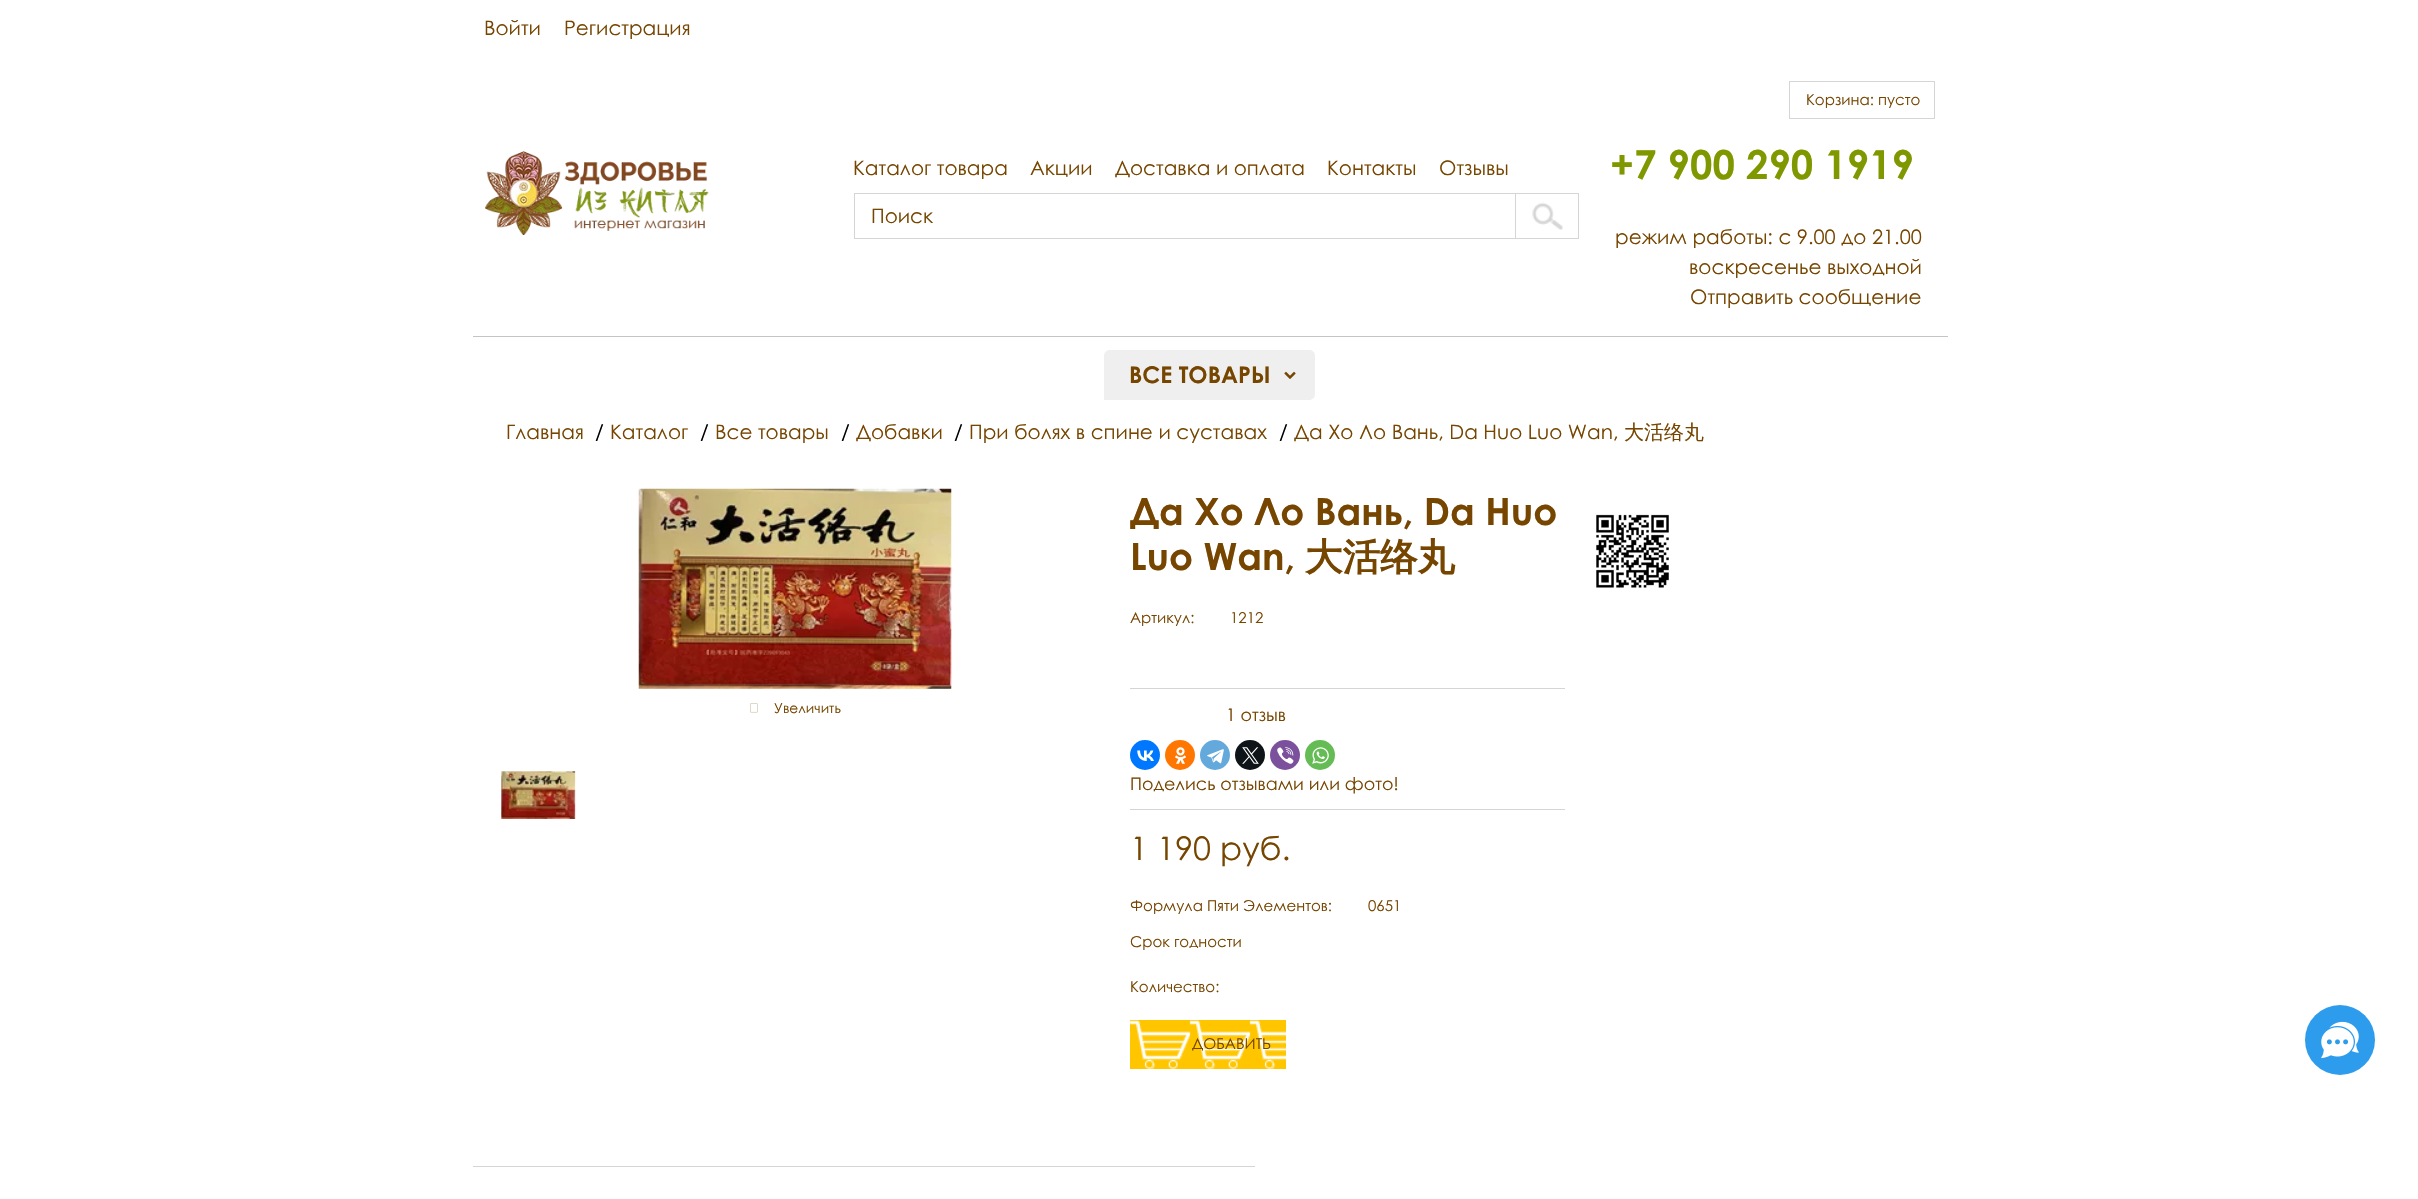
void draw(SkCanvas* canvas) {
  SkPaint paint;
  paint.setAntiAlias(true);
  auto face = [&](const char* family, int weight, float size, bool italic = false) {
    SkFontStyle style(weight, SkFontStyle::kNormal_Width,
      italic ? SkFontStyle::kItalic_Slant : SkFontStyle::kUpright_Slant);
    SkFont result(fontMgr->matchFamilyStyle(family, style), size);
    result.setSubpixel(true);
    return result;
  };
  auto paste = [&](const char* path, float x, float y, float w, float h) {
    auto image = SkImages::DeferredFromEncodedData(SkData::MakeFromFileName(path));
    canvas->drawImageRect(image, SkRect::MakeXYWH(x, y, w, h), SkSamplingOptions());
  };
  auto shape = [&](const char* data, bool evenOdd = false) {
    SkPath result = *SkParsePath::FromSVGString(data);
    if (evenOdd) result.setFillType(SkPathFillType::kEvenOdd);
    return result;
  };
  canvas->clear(0xffffffff);
  paint.setColor(0xffc4c4c4);
  canvas->drawRect(SkRect::MakeXYWH(473, 336, 1475, 1), paint);
  paste("img/1.png", 485, 151, 224, 84);
  paint.setStroke(true);
  paint.setStrokeWidth(1);
  paint.setColor(0xffd5d5d5);
  canvas->drawRect(SkRect::MakeXYWH(854.5f, 193.5f, 661, 45), paint);
  paste("img/2.png", 1532, 202, 31, 28);
  paint.setStroke(false);
  {
    const struct { float x, y, w, h; SkColor color; } items[] = {
      {1516, 193, 63, 1, 0xffd5d5d5},
      {1578, 193, 1, 46, 0xffd5d5d5},
      {1516, 238, 63, 1, 0xffd5d5d5},
    };
    for (auto [x, y, w, h, color] : items) {
      paint.setColor(color);
      canvas->drawRect(SkRect::MakeXYWH(x, y, w, h), paint);
    }
  }
  paint.setStroke(true);
  canvas->drawRect(SkRect::MakeXYWH(1789.5f, 81.5f, 145, 37), paint);
  paint.setStroke(false);
  paint.setColor(0xffefefef);
  canvas->drawPath(shape("M1110 350H1309C1312.5 350 1315 352.5 1315 356V394C1315 397.5 1312.5 400 1309 400H1104V356C1104 352.5 1106.5 350 1110 350Z"), paint);
  paste("img/3.png", 1284, 371, 12, 8);
  paste("img/4.png", 638, 488, 314, 201);
  paste("img/5.png", 750, 703, 8, 10);
  paste("img/6.png", 501, 771, 75, 48);
  paint.setColor(0xffd5d5d5);
  canvas->drawRect(SkRect::MakeXYWH(1130, 688, 435, 1), paint);
  paint.setColor(0xff0077ff);
  canvas->drawCircle(1145, 755, 15, paint);
  paste("img/7.png", 1137, 750, 17, 11);
  paint.setColor(0xffff7700);
  canvas->drawCircle(1180, 755, 15, paint);
  paste("img/8.png", 1175, 747, 12, 17);
  paint.setColor(0xff64a9dc);
  canvas->drawCircle(1215, 755, 15, paint);
  paste("img/9.png", 1207, 749, 17, 15);
  paint.setColor(0xff0f1419);
  canvas->drawCircle(1250, 755, 15, paint);
  paste("img/10.png", 1242, 747, 17, 17);
  paint.setColor(0xff7b519d);
  canvas->drawCircle(1285, 755, 15, paint);
  paste("img/11.png", 1277, 747, 17, 17);
  paint.setColor(0xff65bc54);
  canvas->drawCircle(1320, 755, 15, paint);
  paste("img/12.png", 1312, 747, 17, 17);
  paint.setColor(0xffd5d5d5);
  canvas->drawRect(SkRect::MakeXYWH(1130, 809, 435, 1), paint);
  paint.setColor(0xffffc600);
  canvas->drawRect(SkRect::MakeXYWH(1130, 1020, 156, 49), paint);
  paste("img/13.png", 1130, 1020, 156, 49);
  paste("img/14.png", 1596, 514, 73, 74);
  paint.setColor(0xffd5d5d5);
  canvas->drawRect(SkRect::MakeXYWH(473, 1166, 782, 1), paint);
  paint.setColor(0xff2d9ced);
  canvas->drawCircle(2340, 1040, 35, paint);
  paste("img/15.png", 2321, 1021, 38, 38);
  auto f0 = face("Century Gothic", 400, 20);
  paint.setColor(0xff764500);
  {
    const struct { const char* s; float x, y; } items[] = {
      {"Войти", 484, 35},
      {"Регистрация", 564, 35},
      {"Каталог товара", 853, 175},
      {"Акции", 1030, 175},
      {"Доставка и оплата", 1115, 175},
      {"Контакты", 1327, 175},
      {"Отзывы", 1439, 175},
      {"Поиск", 871, 223},
    };
    for (auto [s, x, y] : items) {
      canvas->drawString(s, x, y, f0, paint);
    }
  }
  auto f1 = face("Century Gothic", 400, 15);
  canvas->drawString("Корзина: пусто", 1806, 105, f1, paint);
  auto f2 = face("Century Gothic", 700, 40);
  paint.setColor(0xff809800);
  canvas->drawString("+7 900 290 1919", 1610, 179, f2, paint);
  paint.setColor(0xff764500);
  {
    const struct { const char* s; float x, y; } items[] = {
      {"режим работы: c 9.00 до 21.00", 1615, 244},
      {"воскресенье выходной", 1689, 274},
      {"Отправить сообщение", 1690, 304},
    };
    for (auto [s, x, y] : items) {
      canvas->drawString(s, x, y, f0, paint);
    }
  }
  auto f3 = face("Century Gothic", 700, 23);
  canvas->drawString("ВСЕ ТОВАРЫ", 1129, 383, f3, paint);
  canvas->drawString("Главная", 506, 439, f0, paint);
  paint.setColor(0xff000000);
  canvas->drawString("/", 595, 439, f0, paint);
  paint.setColor(0xff764500);
  canvas->drawString("Каталог", 610, 439, f0, paint);
  paint.setColor(0xff000000);
  canvas->drawString("/", 700, 439, f0, paint);
  paint.setColor(0xff764500);
  canvas->drawString("Все товары", 715, 439, f0, paint);
  paint.setColor(0xff000000);
  canvas->drawString("/", 841, 439, f0, paint);
  paint.setColor(0xff764500);
  canvas->drawString("Добавки", 856, 439, f0, paint);
  paint.setColor(0xff000000);
  canvas->drawString("/", 954, 439, f0, paint);
  paint.setColor(0xff764500);
  canvas->drawString("При болях в спине и суставах", 969, 439, f0, paint);
  paint.setColor(0xff000000);
  canvas->drawString("/", 1279, 439, f0, paint);
  paint.setColor(0xff764500);
  canvas->drawString("Да Хо Ло Вань, Da Huo Luo Wan,", 1294, 439, f0, paint);
  auto f4 = face("WenQuanYi Zen Hei", 500, 20);
  canvas->drawString("大活络丸", 1624, 439, f4, paint);
  auto f5 = face("Century Gothic", 400, 13.75f);
  canvas->drawString("Увеличить", 774, 713, f5, paint);
  auto f6 = face("Century Gothic", 700, 37.5f);
  canvas->drawString("Да Хо Ло Вань, Da Huo", 1130, 525, f6, paint);
  canvas->drawString("Luo Wan,", 1130, 570, f6, paint);
  auto f7 = face("WenQuanYi Zen Hei", 700, 37.5f);
  canvas->drawString("大活络丸", 1305, 570, f7, paint);
  canvas->drawString("Артикул:", 1130, 623, f1, paint);
  canvas->drawString("1212", 1230, 623, f1, paint);
  auto f8 = face("Century Gothic", 400, 17.5f);
  canvas->drawString("1 отзыв", 1226, 721, f8, paint);
  canvas->drawString("Поделись отзывами или фото!", 1130, 790, f8, paint);
  auto f9 = face("Century Gothic", 400, 32.5f);
  canvas->drawString("1 190 руб.", 1130, 860, f9, paint);
  {
    const struct { const char* s; float x, y; } items[] = {
      {"Формула Пяти Элементов:", 1130, 911},
      {"0651", 1368, 911},
      {"Срок годности", 1130, 947},
      {"Количество:", 1130, 992},
      {"ДОБАВИТЬ", 1192, 1049},
    };
    for (auto [s, x, y] : items) {
      canvas->drawString(s, x, y, f1, paint);
    }
  }
}
